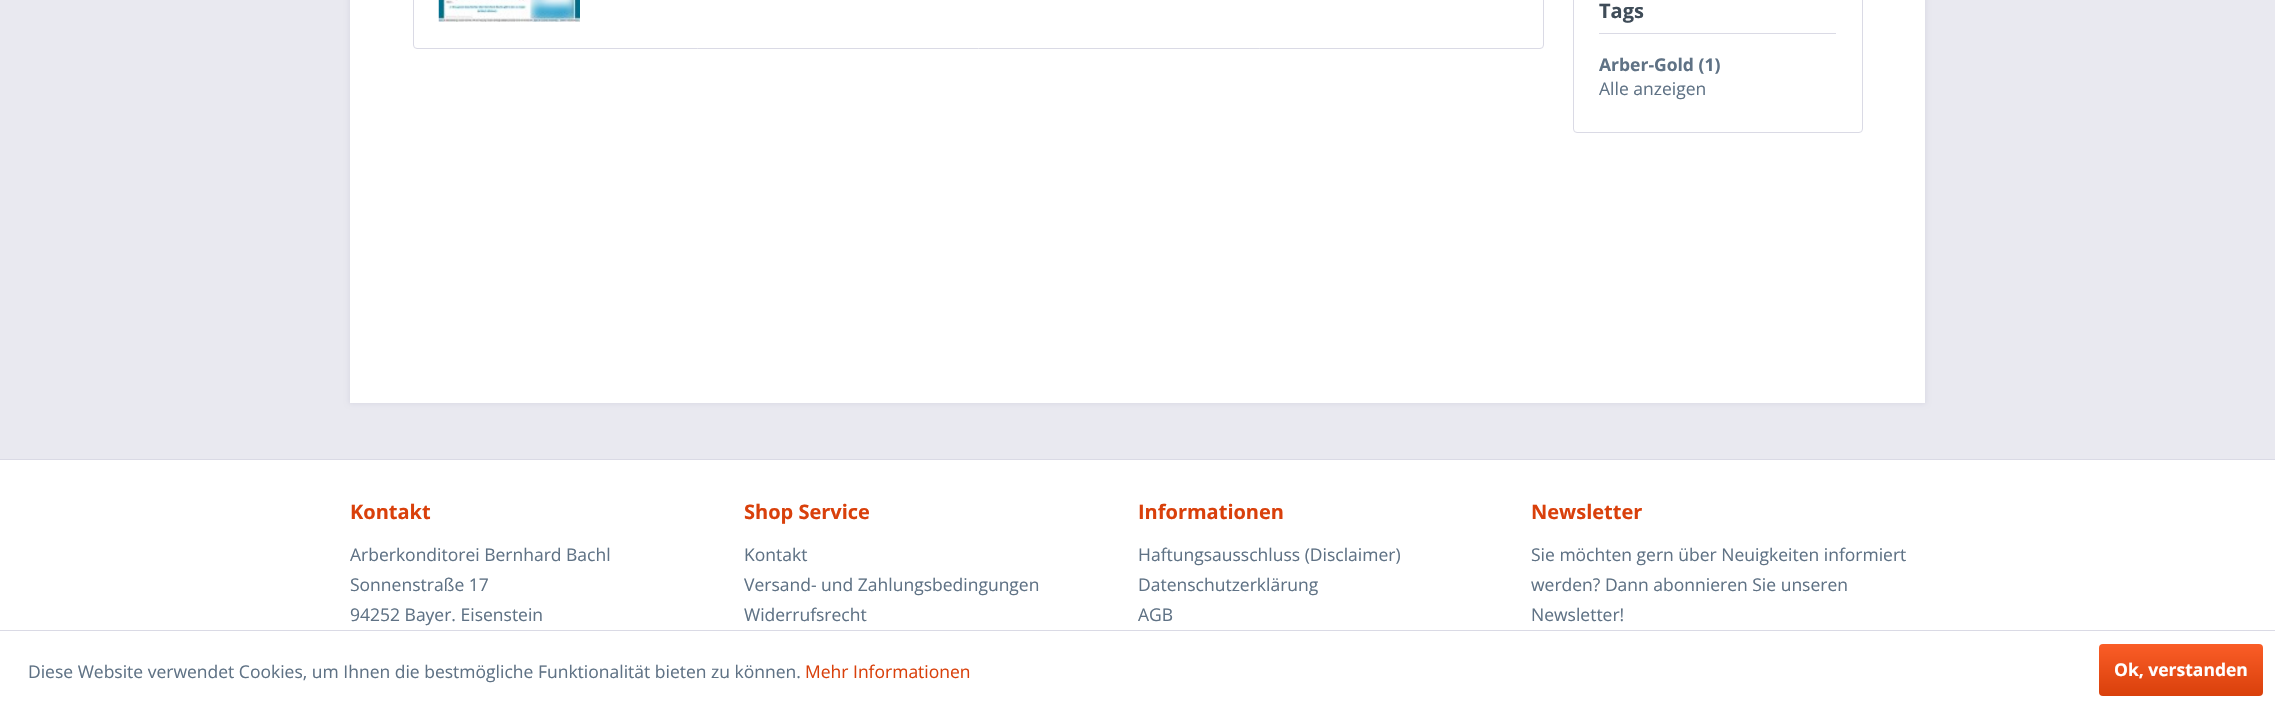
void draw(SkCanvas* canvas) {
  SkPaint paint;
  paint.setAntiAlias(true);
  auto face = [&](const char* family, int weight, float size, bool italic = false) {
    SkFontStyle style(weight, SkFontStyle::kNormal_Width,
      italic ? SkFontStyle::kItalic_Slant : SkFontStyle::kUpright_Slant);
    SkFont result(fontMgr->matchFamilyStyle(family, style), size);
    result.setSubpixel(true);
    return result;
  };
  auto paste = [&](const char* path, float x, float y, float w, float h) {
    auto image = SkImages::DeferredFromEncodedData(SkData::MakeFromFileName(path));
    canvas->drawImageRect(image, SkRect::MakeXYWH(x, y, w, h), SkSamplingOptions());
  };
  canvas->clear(0xffe9e9f0);
  paint.setColor(0xffdadae5);
  paint.setMaskFilter(SkMaskFilter::MakeBlur(kNormal_SkBlurStyle, 2.5f));
  canvas->drawRect(SkRect::MakeXYWH(349, -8, 1577, 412), paint);
  paint.setMaskFilter(nullptr);
  paint.setColor(0xffffffff);
  canvas->drawRect(SkRect::MakeXYWH(350, 0, 1575, 403), paint);
  paint.setStroke(true);
  paint.setStrokeWidth(1);
  paint.setColor(0xffdadae5);
  canvas->drawRoundRect(SkRect::MakeXYWH(413.5f, -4.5f, 1130, 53), 3.5f, 3.5f, paint);
  paste("img/1.png", 438, 0, 142, 22);
  canvas->drawRoundRect(SkRect::MakeXYWH(1573.5f, -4.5f, 289, 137), 3.5f, 3.5f, paint);
  paint.setStroke(false);
  {
    const struct { float x, y, w, h; SkColor color; } items[] = {
      {1599, 33, 237, 1, 0xffdadae5},
      {0, 460, 2275, 170, 0xffffffff},
      {0, 459, 2275, 1, 0xffdadae5},
      {0, 631, 2275, 78, 0xffffffff},
      {0, 630, 2275, 1, 0xffdadae5},
    };
    for (auto [x, y, w, h, color] : items) {
      paint.setColor(color);
      canvas->drawRect(SkRect::MakeXYWH(x, y, w, h), paint);
    }
  }
  {
    const SkColor colors[] = {0xfffa5d27, 0xffd9400b};
    const float stops[] = {0, 1};
    const SkPoint ends[] = {{2181, 644}, {2181, 696}};
    paint.setShader(SkGradientShader::MakeLinear(ends, colors, stops, 2, SkTileMode::kClamp));
    paint.setAlpha(255);
  }
  canvas->drawRoundRect(SkRect::MakeXYWH(2099, 644, 164, 52), 4, 4, paint);
  auto f0 = face("Open Sans", 700, 20);
  paint.setShader(nullptr);
  paint.setColor(0xff3f4c58);
  canvas->drawString("Tags", 1599, 18, f0, paint);
  auto f1 = face("Open Sans", 700, 17.5f);
  paint.setColor(0xff5f7285);
  canvas->drawString("Arber-Gold (1)", 1599, 71, f1, paint);
  auto f2 = face("Open Sans", 400, 17.5f);
  canvas->drawString("Alle anzeigen", 1599, 95, f2, paint);
  paint.setColor(0xffd9400b);
  canvas->drawString("Kontakt", 350, 519, f0, paint);
  paint.setColor(0xff5f7285);
  {
    const struct { const char* s; float x, y; } items[] = {
      {"Arberkonditorei Bernhard Bachl", 350, 561},
      {"Sonnenstraße 17", 350, 591},
      {"94252 Bayer. Eisenstein", 350, 621},
    };
    for (auto [s, x, y] : items) {
      canvas->drawString(s, x, y, f2, paint);
    }
  }
  paint.setColor(0xffd9400b);
  canvas->drawString("Shop Service", 744, 519, f0, paint);
  paint.setColor(0xff5f7285);
  {
    const struct { const char* s; float x, y; } items[] = {
      {"Kontakt", 744, 561},
      {"Versand- und Zahlungsbedingungen", 744, 591},
      {"Widerrufsrecht", 744, 621},
    };
    for (auto [s, x, y] : items) {
      canvas->drawString(s, x, y, f2, paint);
    }
  }
  paint.setColor(0xffd9400b);
  canvas->drawString("Informationen", 1138, 519, f0, paint);
  paint.setColor(0xff5f7285);
  {
    const struct { const char* s; float x, y; } items[] = {
      {"Haftungsausschluss (Disclaimer)", 1138, 561},
      {"Datenschutzerklärung", 1138, 591},
      {"AGB", 1138, 621},
    };
    for (auto [s, x, y] : items) {
      canvas->drawString(s, x, y, f2, paint);
    }
  }
  paint.setColor(0xffd9400b);
  canvas->drawString("Newsletter", 1531, 519, f0, paint);
  paint.setColor(0xff5f7285);
  {
    const struct { const char* s; float x, y; } items[] = {
      {"Sie möchten gern über Neuigkeiten informiert", 1531, 561},
      {"werden? Dann abonnieren Sie unseren", 1531, 591},
      {"Newsletter!", 1531, 621},
      {"Diese Website verwendet Cookies, um Ihnen die bestmögliche Funktionalität bieten zu können.", 28, 678},
    };
    for (auto [s, x, y] : items) {
      canvas->drawString(s, x, y, f2, paint);
    }
  }
  paint.setColor(0xffd9400b);
  canvas->drawString("Mehr Informationen", 805, 678, f2, paint);
  paint.setColor(0xffffffff);
  canvas->drawString("Ok, verstanden", 2114, 676, f1, paint);
}
